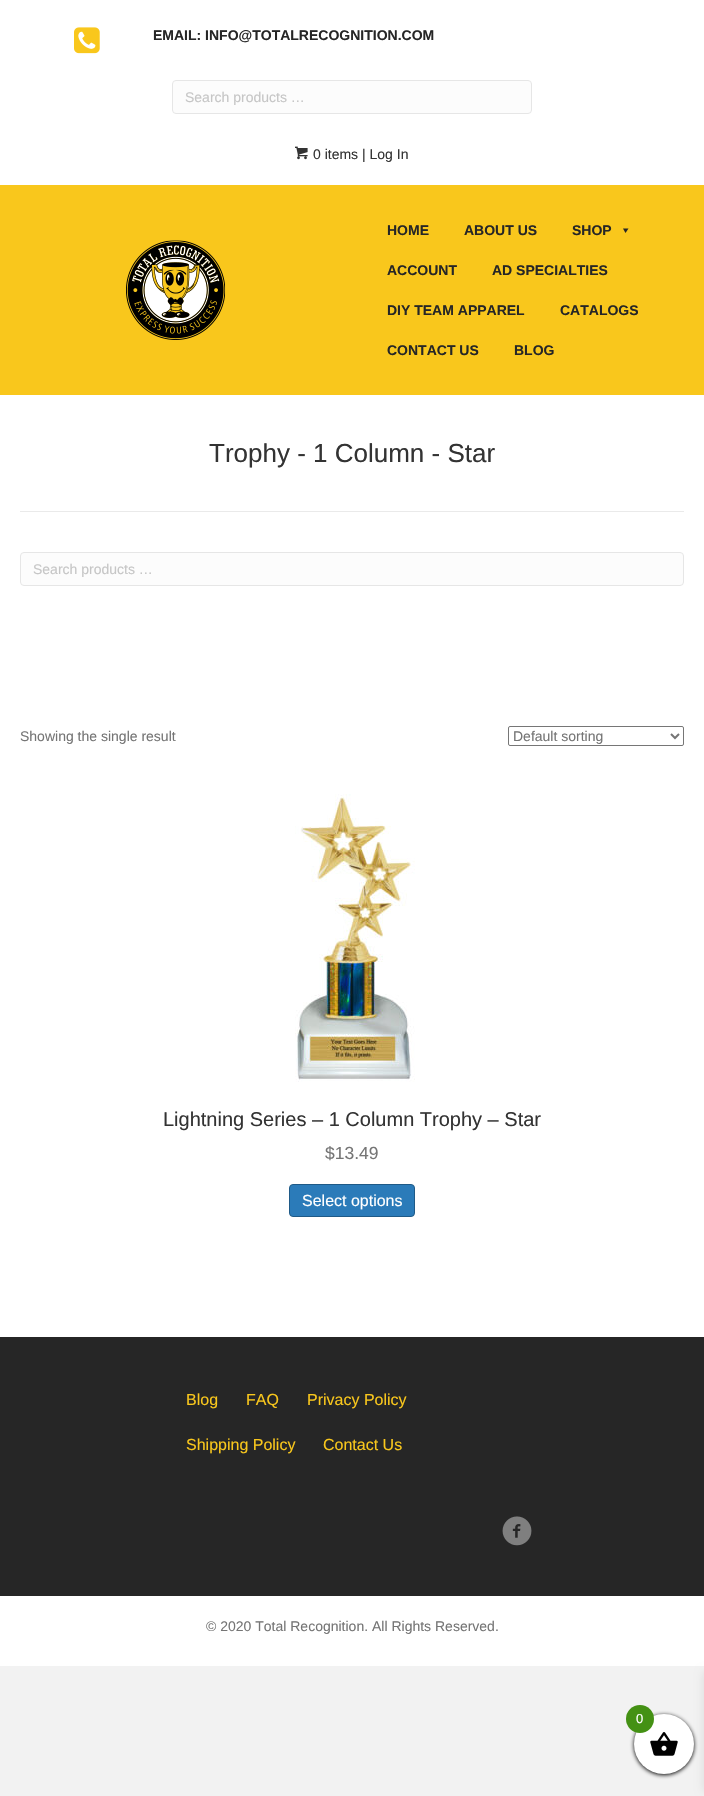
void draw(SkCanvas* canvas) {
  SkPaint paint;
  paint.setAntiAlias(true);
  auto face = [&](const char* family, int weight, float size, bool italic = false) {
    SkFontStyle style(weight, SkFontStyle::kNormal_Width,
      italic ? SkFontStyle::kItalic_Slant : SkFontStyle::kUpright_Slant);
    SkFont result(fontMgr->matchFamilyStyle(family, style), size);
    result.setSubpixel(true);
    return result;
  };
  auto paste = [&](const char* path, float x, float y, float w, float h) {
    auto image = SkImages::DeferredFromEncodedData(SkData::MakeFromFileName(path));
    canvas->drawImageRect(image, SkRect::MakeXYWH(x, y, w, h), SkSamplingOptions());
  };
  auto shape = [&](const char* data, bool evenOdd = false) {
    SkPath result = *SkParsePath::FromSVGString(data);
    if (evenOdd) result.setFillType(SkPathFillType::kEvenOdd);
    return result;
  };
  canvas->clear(0xfff2f2f2);
  paint.setColor(0xffffffff);
  canvas->drawRect(SkRect::MakeXYWH(0, 0, 704, 185), paint);
  paste("img/1.png", 74, 27, 26, 27);
  paint.setColor(0xfffcfcfc);
  canvas->drawRoundRect(SkRect::MakeXYWH(172.5f, 80.5f, 359, 33), 3.5f, 3.5f, paint);
  paint.setStroke(true);
  paint.setStrokeWidth(1);
  paint.setColor(0xffe6e6e6);
  canvas->drawRoundRect(SkRect::MakeXYWH(172.5f, 80.5f, 359, 33), 3.5f, 3.5f, paint);
  paste("img/2.png", 295, 146, 13, 14);
  paint.setStroke(false);
  paint.setColor(0xfff9c71c);
  canvas->drawRect(SkRect::MakeXYWH(0, 185, 704, 210), paint);
  paste("img/3.png", 126, 240, 100, 100);
  paint.setColor(0xff262626);
  canvas->drawPath(shape("M628.5 228.5L625.5 233L623 228.5Z"), paint);
  paint.setColor(0xffffffff);
  canvas->drawRect(SkRect::MakeXYWH(0, 395, 704, 942), paint);
  paint.setColor(0xffeaeaea);
  canvas->drawRect(SkRect::MakeXYWH(20, 511, 664, 1), paint);
  paint.setColor(0xfffcfcfc);
  canvas->drawRoundRect(SkRect::MakeXYWH(20.5f, 552.5f, 663, 33), 3.5f, 3.5f, paint);
  paint.setStroke(true);
  paint.setColor(0xffe6e6e6);
  canvas->drawRoundRect(SkRect::MakeXYWH(20.5f, 552.5f, 663, 33), 3.5f, 3.5f, paint);
  paint.setColor(0xff767676);
  canvas->drawRoundRect(SkRect::MakeXYWH(508.5f, 726.5f, 175, 19), 1.5f, 1.5f, paint);
  paint.setStrokeWidth(2);
  paint.setColor(0xff757575);
  canvas->drawPath(shape("M671 734L675 738L679 734"), paint);
  paste("img/4.png", 295, 794, 120, 288);
  paint.setStroke(false);
  paint.setColor(0xff2b7bb9);
  canvas->drawRoundRect(SkRect::MakeXYWH(289.5f, 1184.5f, 125, 32), 3.5f, 3.5f, paint);
  paint.setStroke(true);
  paint.setStrokeWidth(1);
  paint.setColor(0xff1f5a87);
  canvas->drawRoundRect(SkRect::MakeXYWH(289.5f, 1184.5f, 125, 32), 3.5f, 3.5f, paint);
  paint.setStroke(false);
  paint.setColor(0xff262626);
  canvas->drawRect(SkRect::MakeXYWH(0, 1337, 704, 259), paint);
  paste("img/5.png", 502, 1516, 30, 30);
  paint.setColor(0xffffffff);
  canvas->drawRect(SkRect::MakeXYWH(0, 1596, 704, 70), paint);
  paint.setColor(0xff000000);
  paint.setMaskFilter(SkMaskFilter::MakeBlur(kNormal_SkBlurStyle, 2));
  canvas->drawRoundRect(SkRect::MakeXYWH(634, 1715, 60, 60), 30, 30, paint);
  paint.setMaskFilter(nullptr);
  paint.setColor(0x1a000000);
  paint.setMaskFilter(SkMaskFilter::MakeBlur(kNormal_SkBlurStyle, 5));
  canvas->drawRect(SkRect::MakeXYWH(704, 1672, 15, 119), paint);
  paint.setMaskFilter(nullptr);
  paint.setColor(0xffffffff);
  canvas->drawCircle(664, 1744, 30, paint);
  paste("img/6.png", 650, 1732, 28, 24);
  paint.setColor(0xff449114);
  canvas->drawCircle(640, 1719, 14, paint);
  auto f0 = face("Liberation Sans", 700, 14);
  paint.setColor(0xff262626);
  canvas->drawString("EMAIL: INFO@TOTALRECOGNITION.COM", 153, 40, f0, paint);
  auto f1 = face("Liberation Sans", 400, 14);
  paint.setColor(0xffc6c6c6);
  canvas->drawString("Search products …", 185, 102, f1, paint);
  paint.setColor(0xff333333);
  canvas->drawString("0 items | Log In", 313, 159, f1, paint);
  paint.setColor(0xff262626);
  {
    const struct { const char* s; float x, y; } items[] = {
      {"HOME", 387, 235},
      {"ABOUT US", 464, 235},
      {"SHOP", 572, 235},
      {"ACCOUNT", 387, 275},
      {"AD SPECIALTIES", 492, 275},
      {"DIY TEAM APPAREL", 387, 315},
      {"CATALOGS", 560, 315},
      {"CONTACT US", 387, 355},
      {"BLOG", 514, 355},
    };
    for (auto [s, x, y] : items) {
      canvas->drawString(s, x, y, f0, paint);
    }
  }
  auto f2 = face("Liberation Sans", 400, 26);
  paint.setColor(0xff333333);
  canvas->drawString("Trophy - 1 Column - Star", 209, 462, f2, paint);
  paint.setColor(0xffc6c6c6);
  canvas->drawString("Search products …", 33, 574, f1, paint);
  paint.setColor(0xff757575);
  canvas->drawString("Showing the single result", 20, 741, f1, paint);
  canvas->drawString("Default sorting", 513, 741, f1, paint);
  auto f3 = face("Liberation Sans", 400, 20);
  paint.setColor(0xff333333);
  canvas->drawString("Lightning Series – 1 Column Trophy – Star", 163, 1126, f3, paint);
  auto f4 = face("Liberation Sans", 400, 17.5f);
  paint.setColor(0xff757575);
  canvas->drawString("$13.49", 325, 1159, f4, paint);
  auto f5 = face("Liberation Sans", 400, 16);
  paint.setColor(0xffffffff);
  canvas->drawString("Select options", 302, 1206, f5, paint);
  paint.setColor(0xfff9c71c);
  {
    const struct { const char* s; float x, y; } items[] = {
      {"Blog", 186, 1405},
      {"FAQ", 246, 1405},
      {"Privacy Policy", 307, 1405},
      {"Shipping Policy", 186, 1450},
      {"Contact Us", 323, 1450},
    };
    for (auto [s, x, y] : items) {
      canvas->drawString(s, x, y, f5, paint);
    }
  }
  paint.setColor(0xff757575);
  canvas->drawString("© 2020 Total Recognition. All Rights Reserved.", 206, 1631, f1, paint);
  auto f6 = face("Liberation Sans", 400, 13);
  paint.setColor(0xffffffff);
  canvas->drawString("0", 636, 1723, f6, paint);
}
